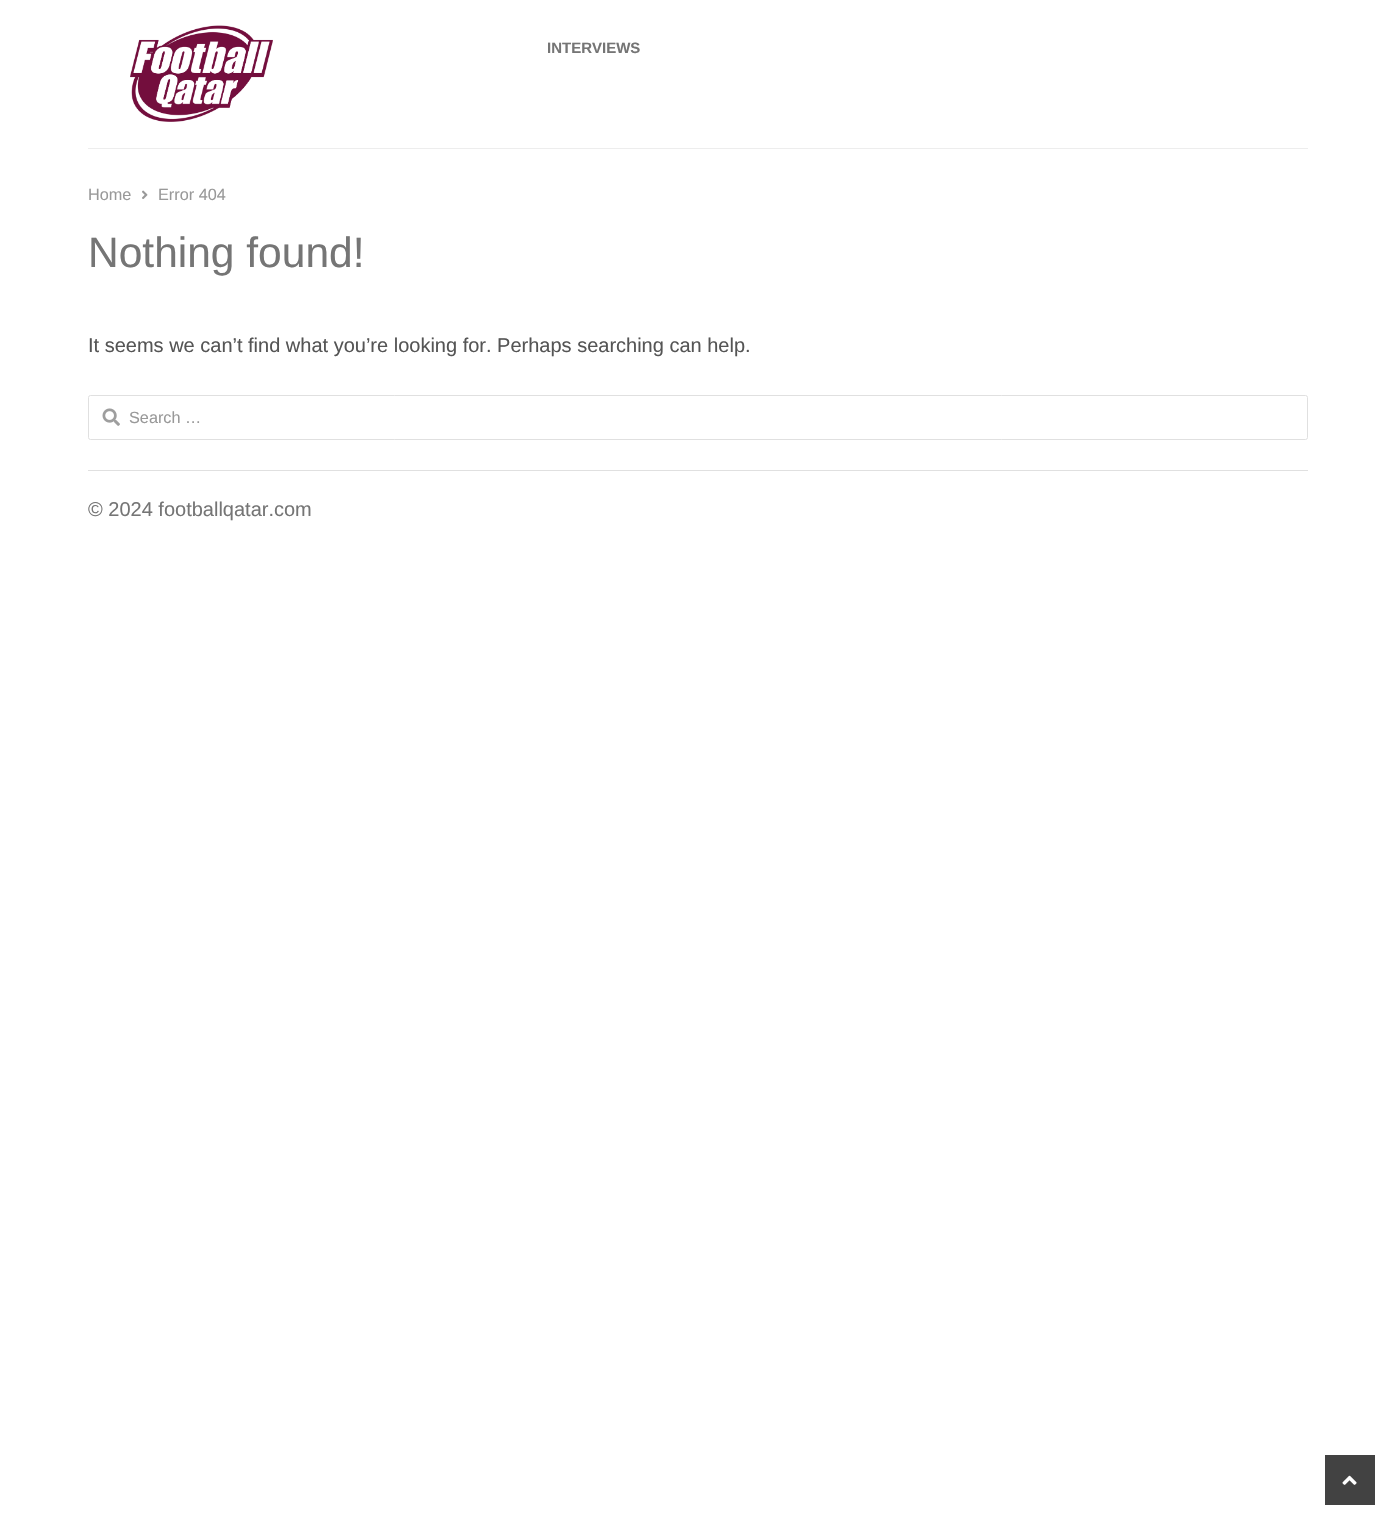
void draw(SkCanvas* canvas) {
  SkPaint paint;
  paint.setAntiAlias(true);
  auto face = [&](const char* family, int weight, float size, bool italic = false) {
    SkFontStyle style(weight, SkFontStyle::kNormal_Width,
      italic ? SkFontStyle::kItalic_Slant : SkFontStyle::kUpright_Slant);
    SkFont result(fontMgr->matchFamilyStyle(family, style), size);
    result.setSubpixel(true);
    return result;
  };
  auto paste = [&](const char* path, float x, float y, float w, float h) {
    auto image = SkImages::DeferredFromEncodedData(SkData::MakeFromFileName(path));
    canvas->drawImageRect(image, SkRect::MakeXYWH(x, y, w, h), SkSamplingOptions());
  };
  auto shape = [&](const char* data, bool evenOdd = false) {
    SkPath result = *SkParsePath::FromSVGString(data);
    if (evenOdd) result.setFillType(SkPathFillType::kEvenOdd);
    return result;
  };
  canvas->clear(0xffffffff);
  paint.setColor(0xffededed);
  canvas->drawPath(shape("M88 148V149H1308V1V148Z"), paint);
  paste("img/1.png", 130, 25, 143, 97);
  paste("img/2.png", 142, 190, 6, 9);
  paint.setStroke(true);
  paint.setStrokeWidth(1);
  paint.setColor(0xffe0e0e0);
  canvas->drawRoundRect(SkRect::MakeXYWH(88.5f, 395.5f, 1219, 44), 2, 2, paint);
  paste("img/3.png", 102, 408, 18, 18);
  paint.setStroke(false);
  canvas->drawRect(SkRect::MakeXYWH(88, 470, 1220, 1), paint);
  paint.setColor(0xff424242);
  canvas->drawRect(SkRect::MakeXYWH(1325, 1455, 50, 50), paint);
  paste("img/4.png", 1342, 1475, 15, 10);
  auto f0 = face("Liberation Sans", 700, 15);
  paint.setColor(0xff757575);
  canvas->drawString("INTERVIEWS", 547, 53, f0, paint);
  auto f1 = face("Liberation Sans", 400, 16.25f);
  paint.setColor(0xff999999);
  canvas->drawString("Home", 88, 200, f1, paint);
  canvas->drawString("Error 404", 158, 200, f1, paint);
  auto f2 = face("Liberation Sans", 400, 42.5f);
  paint.setColor(0xff757575);
  canvas->drawString("Nothing found!", 88, 267, f2, paint);
  auto f3 = face("Liberation Sans", 400, 20);
  paint.setColor(0xff555555);
  canvas->drawString("It seems we can’t find what you’re looking for. Perhaps searching can help.", 88, 352, f3, paint);
  paint.setColor(0xff999999);
  canvas->drawString("Search …", 129, 423, f1, paint);
  paint.setColor(0xff757575);
  canvas->drawString("© 2024 footballqatar.com", 88, 516, f3, paint);
}
